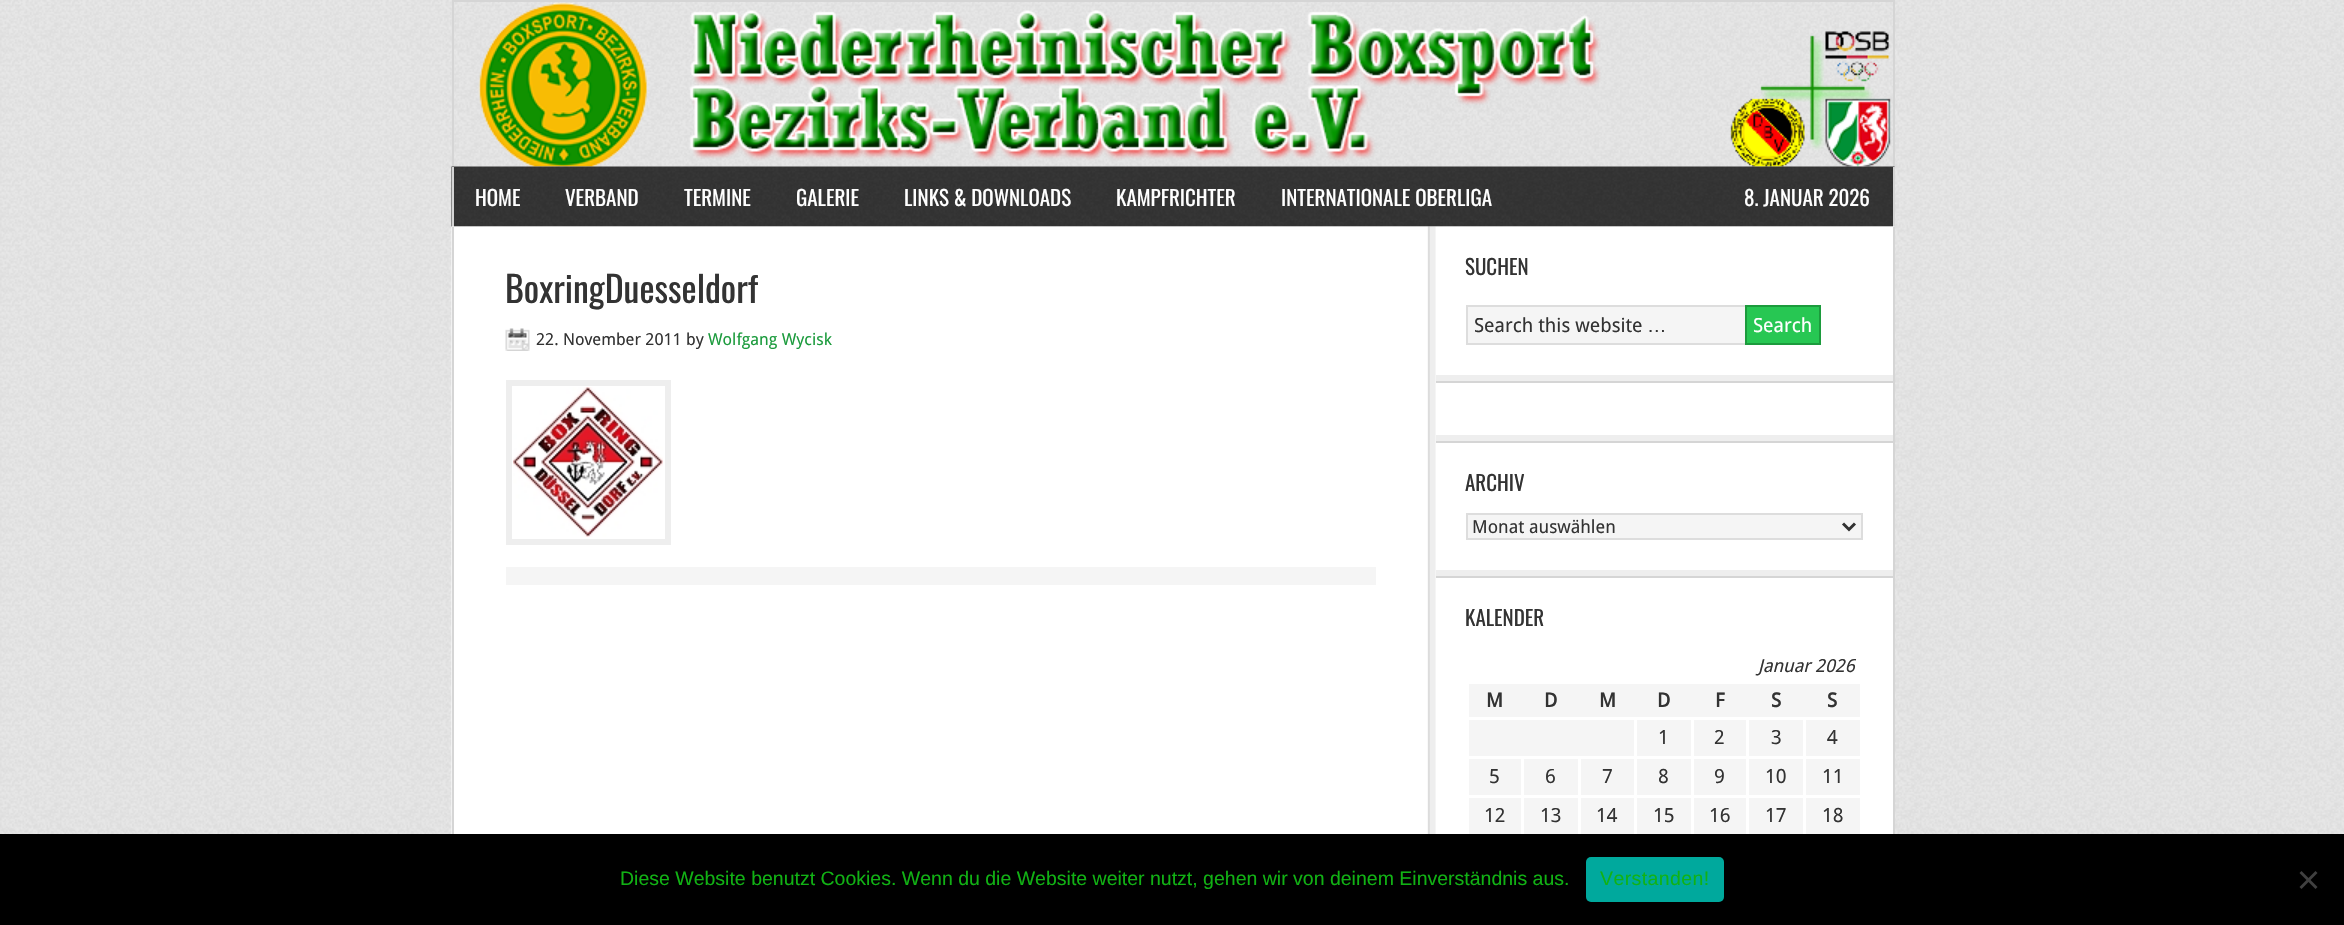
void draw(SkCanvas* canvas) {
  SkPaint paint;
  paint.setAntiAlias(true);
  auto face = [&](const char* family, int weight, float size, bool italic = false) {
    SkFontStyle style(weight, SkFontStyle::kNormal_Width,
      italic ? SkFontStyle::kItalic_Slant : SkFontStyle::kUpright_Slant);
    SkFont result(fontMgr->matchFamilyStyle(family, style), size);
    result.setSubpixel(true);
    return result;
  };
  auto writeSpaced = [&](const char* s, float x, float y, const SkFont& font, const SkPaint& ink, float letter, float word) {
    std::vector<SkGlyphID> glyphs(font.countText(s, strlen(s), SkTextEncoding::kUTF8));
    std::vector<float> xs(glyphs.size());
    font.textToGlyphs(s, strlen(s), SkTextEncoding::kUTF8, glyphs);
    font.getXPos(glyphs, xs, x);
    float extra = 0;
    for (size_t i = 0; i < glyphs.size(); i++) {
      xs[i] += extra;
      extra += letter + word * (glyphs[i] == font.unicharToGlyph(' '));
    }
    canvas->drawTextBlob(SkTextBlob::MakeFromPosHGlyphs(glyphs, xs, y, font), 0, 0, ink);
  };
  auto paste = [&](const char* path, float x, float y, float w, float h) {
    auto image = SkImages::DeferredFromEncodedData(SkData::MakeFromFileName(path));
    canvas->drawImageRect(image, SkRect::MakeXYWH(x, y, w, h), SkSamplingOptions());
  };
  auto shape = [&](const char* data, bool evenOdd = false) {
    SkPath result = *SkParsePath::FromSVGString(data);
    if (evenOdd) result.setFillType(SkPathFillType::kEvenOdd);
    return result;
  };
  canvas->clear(0xffffffff);
  paste("img/1.png", 0, 0, 2344, 834);
  paste("img/2.png", 478, 2, 1413, 165);
  {
    const struct { float x, y, w, h; SkColor color; } items[] = {
      {452, 0, 1443, 2, 0xffd5d5d5},
      {1893, 0, 2, 167, 0xffd5d5d5},
      {452, 0, 2, 167, 0xffd5d5d5},
    };
    for (auto [x, y, w, h, color] : items) {
      paint.setColor(color);
      canvas->drawRect(SkRect::MakeXYWH(x, y, w, h), paint);
    }
  }
  paste("img/3.png", 451, 166, 1444, 61);
  canvas->drawRect(SkRect::MakeXYWH(1893, 167, 2, 60), paint);
  canvas->drawRect(SkRect::MakeXYWH(452, 167, 2, 60), paint);
  paste("img/4.png", 451, 226, 1444, 608);
  canvas->drawRect(SkRect::MakeXYWH(1893, 227, 2, 607), paint);
  canvas->drawRect(SkRect::MakeXYWH(452, 227, 2, 607), paint);
  paste("img/5.png", 505, 328, 25, 23);
  paint.setStroke(true);
  paint.setStrokeWidth(6);
  paint.setColor(0xffeeeeee);
  canvas->drawRect(SkRect::MakeXYWH(509, 383, 159, 159), paint);
  paste("img/6.png", 513, 387, 150, 150);
  paint.setStroke(false);
  {
    const struct { float x, y, w, h; SkColor color; } items[] = {
      {506, 567, 870, 18, 0xfff5f5f5},
      {1436, 381, 457, 2, 0xffd5d5d5},
      {1436, 375, 457, 6, 0xffeeeeee},
      {1468, 307, 277, 36, 0xfff5f5f5},
    };
    for (auto [x, y, w, h, color] : items) {
      paint.setColor(color);
      canvas->drawRect(SkRect::MakeXYWH(x, y, w, h), paint);
    }
  }
  paint.setStroke(true);
  paint.setStrokeWidth(2);
  paint.setColor(0xffdddddd);
  canvas->drawRect(SkRect::MakeXYWH(1467, 306, 286, 38), paint);
  paint.setStroke(false);
  paint.setColor(0xff27c753);
  canvas->drawRect(SkRect::MakeXYWH(1746, 306, 74, 38), paint);
  paint.setStroke(true);
  paint.setColor(0xff1c9b3d);
  canvas->drawRect(SkRect::MakeXYWH(1746, 306, 74, 38), paint);
  paint.setStroke(false);
  {
    const struct { float x, y, w, h; SkColor color; } items[] = {
      {1436, 441, 457, 2, 0xffd5d5d5},
      {1436, 435, 457, 6, 0xffeeeeee},
      {1436, 576, 457, 2, 0xffd5d5d5},
      {1436, 570, 457, 6, 0xffeeeeee},
    };
    for (auto [x, y, w, h, color] : items) {
      paint.setColor(color);
      canvas->drawRect(SkRect::MakeXYWH(x, y, w, h), paint);
    }
  }
  paint.setColor(0xfff5f5f5);
  canvas->drawRect(SkRect::MakeXYWH(1467, 514, 395, 25), paint);
  paint.setStroke(true);
  paint.setColor(0xffdddddd);
  canvas->drawRect(SkRect::MakeXYWH(1467, 514, 395, 25), paint);
  paint.setStrokeWidth(3);
  paint.setColor(0xff333333);
  canvas->drawPath(shape("M1843 523.5L1849 529.5L1855 523.5"), paint);
  paint.setStroke(false);
  {
    const struct { float x, y, w, h; SkColor color; } items[] = {
      {1469, 684, 391, 33, 0xfff5f5f5},
      {1469, 720, 165, 36, 0xfff5f5f5},
      {1637, 720, 54, 36, 0xfff5f5f5},
      {1694, 720, 52, 36, 0xfff5f5f5},
      {1749, 720, 54, 36, 0xfff5f5f5},
      {1806, 720, 54, 36, 0xfff5f5f5},
      {1469, 759, 52, 36, 0xfff5f5f5},
      {1524, 759, 54, 36, 0xfff5f5f5},
      {1581, 759, 53, 36, 0xfff5f5f5},
      {1637, 759, 54, 36, 0xfff5f5f5},
      {1694, 759, 52, 36, 0xfff5f5f5},
      {1749, 759, 54, 36, 0xfff5f5f5},
      {1806, 759, 54, 36, 0xfff5f5f5},
      {1469, 798, 52, 36, 0xfff5f5f5},
      {1524, 798, 54, 36, 0xfff5f5f5},
      {1581, 798, 53, 36, 0xfff5f5f5},
      {1637, 798, 54, 36, 0xfff5f5f5},
      {1694, 798, 52, 36, 0xfff5f5f5},
      {1749, 798, 54, 36, 0xfff5f5f5},
      {1806, 798, 54, 36, 0xfff5f5f5},
      {0, 834, 2344, 91, 0xff000000},
    };
    for (auto [x, y, w, h, color] : items) {
      paint.setColor(color);
      canvas->drawRect(SkRect::MakeXYWH(x, y, w, h), paint);
    }
  }
  paint.setColor(0xff00a99d);
  canvas->drawRoundRect(SkRect::MakeXYWH(1586, 857, 138, 45), 5, 5, paint);
  paint.setColor(0xff404040);
  canvas->drawPath(shape("M2315.5 871L2317.5 873L2301.5 889L2299.5 887Z"), paint);
  canvas->drawPath(shape("M2299.5 873L2301.5 871L2317.5 887L2315.5 889Z"), paint);
  auto f0 = face("Oswald", 400, 21);
  paint.setColor(0xffffffff);
  {
    const struct { const char* s; float x, y; } items[] = {
      {"HOME", 475, 206},
      {"VERBAND", 565, 206},
      {"TERMINE", 684, 206},
      {"GALERIE", 796, 206},
      {"LINKS & DOWNLOADS", 904, 206},
      {"KAMPFRICHTER", 1116, 206},
      {"INTERNATIONALE OBERLIGA", 1281, 206},
      {"8. JANUAR 2026", 1744, 206},
    };
    for (auto [s, x, y] : items) {
      canvas->drawString(s, x, y, f0, paint);
    }
  }
  auto f1 = face("Oswald", 400, 36);
  paint.setColor(0xff333333);
  canvas->drawString("BoxringDuesseldorf", 505, 303, f1, paint);
  auto f2 = face("Droid Sans", 400, 16.5f);
  canvas->drawString("22. November 2011 by", 536, 345, f2, paint);
  paint.setColor(0xff1c9b3d);
  canvas->drawString("Wolfgang Wycisk", 708, 345, f2, paint);
  paint.setColor(0xff333333);
  canvas->drawString("SUCHEN", 1465, 275, f0, paint);
  auto f3 = face("Droid Sans", 400, 19.5f);
  canvas->drawString("Search this website", 1474, 332, f3, paint);
  auto f4 = face("Liberation Sans", 400, 19.5f);
  canvas->drawString("…", 1647, 332, f4, paint);
  paint.setColor(0xffffffff);
  canvas->drawString("Search", 1753, 332, f3, paint);
  paint.setColor(0xff333333);
  canvas->drawString("ARCHIV", 1465, 491, f0, paint);
  auto f5 = face("Droid Sans", 400, 18);
  canvas->drawString("Monat auswählen", 1472, 533, f5, paint);
  canvas->drawString("KALENDER", 1465, 626, f0, paint);
  auto f6 = face("Droid Sans", 400, 18, true);
  canvas->drawString("Januar 2026", 1758, 672, f6, paint);
  auto f7 = face("Droid Sans", 700, 19.5f);
  {
    const struct { const char* s; float x, y; } items[] = {
      {"M", 1486, 707},
      {"D", 1544, 707},
      {"M", 1599, 707},
      {"D", 1657, 707},
      {"F", 1715, 707},
      {"S", 1771, 707},
      {"S", 1827, 707},
    };
    for (auto [s, x, y] : items) {
      canvas->drawString(s, x, y, f7, paint);
    }
  }
  {
    const struct { const char* s; float x, y; } items[] = {
      {"1", 1658, 744},
      {"2", 1714, 744},
      {"3", 1771, 744},
      {"4", 1827, 744},
      {"5", 1489, 783},
      {"6", 1545, 783},
      {"7", 1602, 783},
      {"8", 1658, 783},
      {"9", 1714, 783},
      {"10", 1765, 783},
      {"11", 1822, 783},
      {"12", 1484, 822},
      {"13", 1540, 822},
      {"14", 1596, 822},
      {"15", 1653, 822},
      {"16", 1709, 822},
      {"17", 1765, 822},
      {"18", 1822, 822},
    };
    for (auto [s, x, y] : items) {
      canvas->drawString(s, x, y, f3, paint);
    }
  }
  paint.setColor(0xff11b214);
  canvas->drawString("Diese Website benutzt Cookies. Wenn du die Website weiter nutzt, gehen wir von deinem Einverständnis aus.", 620, 885, f4, paint);
  writeSpaced("Verstanden!", 1600, 885, f4, paint, 0.4f, 0);
}
